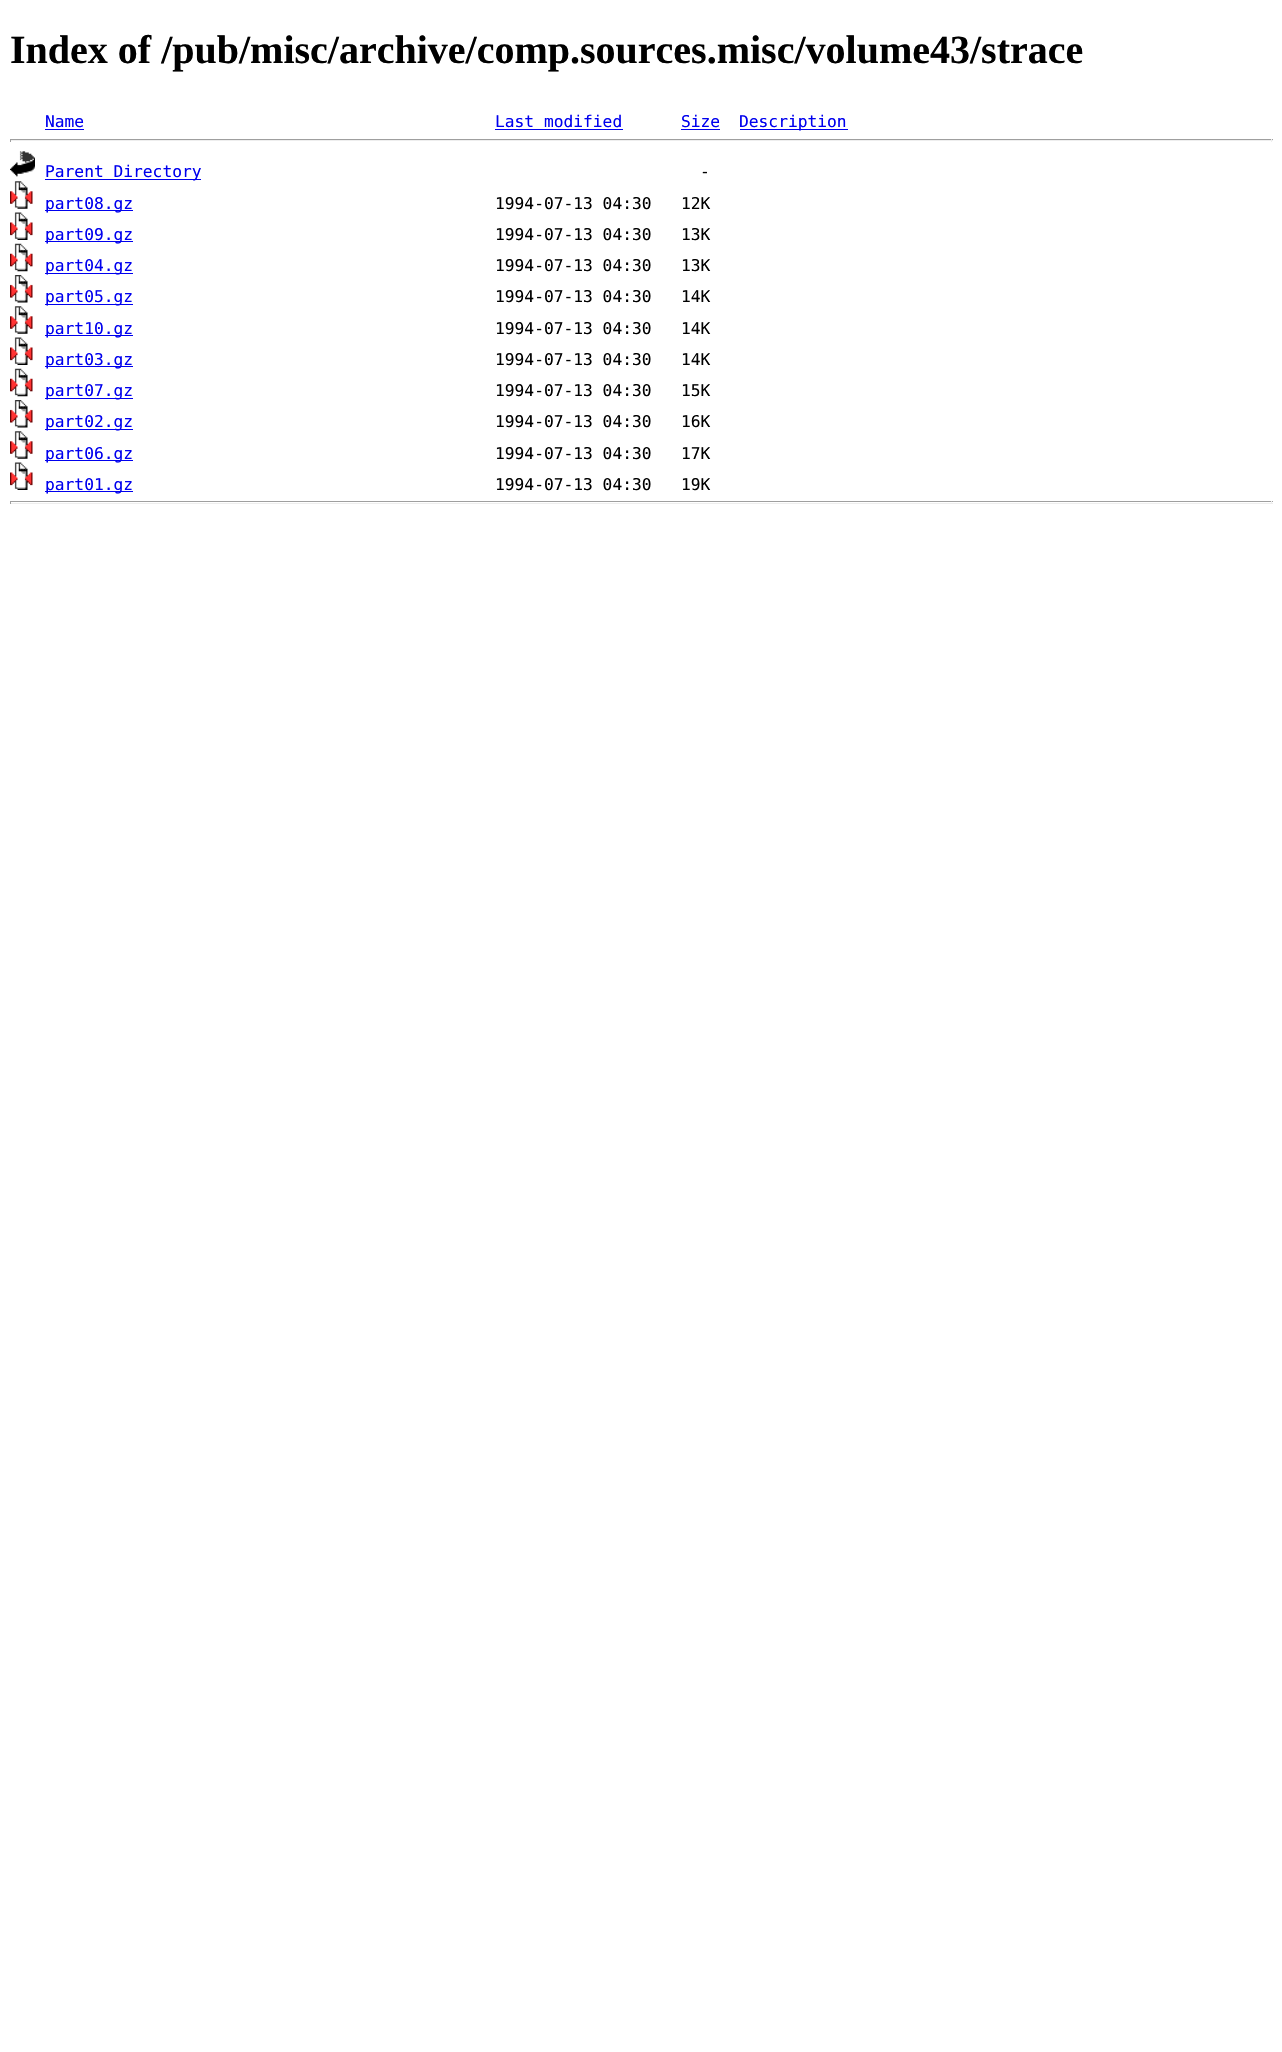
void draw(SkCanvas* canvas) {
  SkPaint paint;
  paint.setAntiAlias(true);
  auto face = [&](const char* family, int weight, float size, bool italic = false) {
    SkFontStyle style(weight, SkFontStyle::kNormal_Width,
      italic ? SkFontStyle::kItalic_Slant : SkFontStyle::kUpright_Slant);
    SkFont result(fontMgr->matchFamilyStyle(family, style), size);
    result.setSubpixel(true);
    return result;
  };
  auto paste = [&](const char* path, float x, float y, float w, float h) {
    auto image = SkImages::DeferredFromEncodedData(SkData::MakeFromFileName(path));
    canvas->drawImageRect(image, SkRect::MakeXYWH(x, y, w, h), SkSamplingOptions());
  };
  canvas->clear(0xffffffff);
  {
    const struct { float x, y, w, h; SkColor color; } items[] = {
      {45, 129, 39, 1, 0xff0000ee},
      {495, 129, 128, 1, 0xff0000ee},
      {681, 129, 39, 1, 0xff0000ee},
      {740, 129, 108, 1, 0xff0000ee},
      {10, 139, 1263, 1, 0xff9f9f9f},
      {1271, 139, 1, 3, 0xffeeeeee},
      {10, 140, 1263, 1, 0xffeeeeee},
      {10, 139, 1, 3, 0xff9f9f9f},
    };
    for (auto [x, y, w, h, color] : items) {
      paint.setColor(color);
      canvas->drawRect(SkRect::MakeXYWH(x, y, w, h), paint);
    }
  }
  paste("img/1.png", 10, 151, 25, 26);
  paint.setColor(0xff0000ee);
  canvas->drawRect(SkRect::MakeXYWH(45, 179, 156, 1), paint);
  paste("img/2.png", 10, 181, 23, 28);
  canvas->drawRect(SkRect::MakeXYWH(45, 210, 88, 1), paint);
  paste("img/3.png", 10, 212, 23, 28);
  canvas->drawRect(SkRect::MakeXYWH(45, 241, 88, 1), paint);
  paste("img/4.png", 10, 243, 23, 29);
  canvas->drawRect(SkRect::MakeXYWH(45, 273, 88, 1), paint);
  paste("img/5.png", 10, 275, 23, 28);
  canvas->drawRect(SkRect::MakeXYWH(45, 304, 88, 1), paint);
  paste("img/2.png", 10, 306, 23, 28);
  canvas->drawRect(SkRect::MakeXYWH(45, 335, 88, 1), paint);
  paste("img/3.png", 10, 337, 23, 28);
  canvas->drawRect(SkRect::MakeXYWH(45, 366, 88, 1), paint);
  paste("img/4.png", 10, 368, 23, 29);
  canvas->drawRect(SkRect::MakeXYWH(45, 398, 88, 1), paint);
  paste("img/6.png", 10, 400, 23, 28);
  canvas->drawRect(SkRect::MakeXYWH(45, 429, 88, 1), paint);
  paste("img/2.png", 10, 431, 23, 28);
  canvas->drawRect(SkRect::MakeXYWH(45, 460, 88, 1), paint);
  paste("img/3.png", 10, 462, 23, 28);
  {
    const struct { float x, y, w, h; SkColor color; } items[] = {
      {45, 491, 88, 1, 0xff0000ee},
      {10, 501, 1263, 1, 0xff9f9f9f},
      {1271, 501, 1, 3, 0xffeeeeee},
      {10, 503, 1263, 1, 0xffeeeeee},
      {10, 501, 1, 3, 0xff9f9f9f},
    };
    for (auto [x, y, w, h, color] : items) {
      paint.setColor(color);
      canvas->drawRect(SkRect::MakeXYWH(x, y, w, h), paint);
    }
  }
  auto f0 = face("Liberation Serif", 700, 40);
  paint.setColor(0xff000000);
  canvas->drawString("Index of /pub/misc/archive/comp.sources.misc/volume43/strace", 10, 63, f0, paint);
  auto f1 = face("DejaVu Sans Mono", 400, 16.25f);
  paint.setColor(0xff0000ee);
  {
    const struct { const char* s; float x, y; } items[] = {
      {"Name", 45, 127},
      {"Last modified", 495, 127},
      {"Size", 681, 127},
      {"Description", 739, 127},
      {"Parent Directory", 45, 177},
    };
    for (auto [s, x, y] : items) {
      canvas->drawString(s, x, y, f1, paint);
    }
  }
  paint.setColor(0xff000000);
  canvas->drawString("-", 700, 177, f1, paint);
  paint.setColor(0xff0000ee);
  canvas->drawString("part08.gz", 45, 209, f1, paint);
  paint.setColor(0xff000000);
  canvas->drawString("1994-07-13 04:30   12K", 495, 209, f1, paint);
  paint.setColor(0xff0000ee);
  canvas->drawString("part09.gz", 45, 240, f1, paint);
  paint.setColor(0xff000000);
  canvas->drawString("1994-07-13 04:30   13K", 495, 240, f1, paint);
  paint.setColor(0xff0000ee);
  canvas->drawString("part04.gz", 45, 271, f1, paint);
  paint.setColor(0xff000000);
  canvas->drawString("1994-07-13 04:30   13K", 495, 271, f1, paint);
  paint.setColor(0xff0000ee);
  canvas->drawString("part05.gz", 45, 302, f1, paint);
  paint.setColor(0xff000000);
  canvas->drawString("1994-07-13 04:30   14K", 495, 302, f1, paint);
  paint.setColor(0xff0000ee);
  canvas->drawString("part10.gz", 45, 334, f1, paint);
  paint.setColor(0xff000000);
  canvas->drawString("1994-07-13 04:30   14K", 495, 334, f1, paint);
  paint.setColor(0xff0000ee);
  canvas->drawString("part03.gz", 45, 365, f1, paint);
  paint.setColor(0xff000000);
  canvas->drawString("1994-07-13 04:30   14K", 495, 365, f1, paint);
  paint.setColor(0xff0000ee);
  canvas->drawString("part07.gz", 45, 396, f1, paint);
  paint.setColor(0xff000000);
  canvas->drawString("1994-07-13 04:30   15K", 495, 396, f1, paint);
  paint.setColor(0xff0000ee);
  canvas->drawString("part02.gz", 45, 427, f1, paint);
  paint.setColor(0xff000000);
  canvas->drawString("1994-07-13 04:30   16K", 495, 427, f1, paint);
  paint.setColor(0xff0000ee);
  canvas->drawString("part06.gz", 45, 459, f1, paint);
  paint.setColor(0xff000000);
  canvas->drawString("1994-07-13 04:30   17K", 495, 459, f1, paint);
  paint.setColor(0xff0000ee);
  canvas->drawString("part01.gz", 45, 490, f1, paint);
  paint.setColor(0xff000000);
  canvas->drawString("1994-07-13 04:30   19K", 495, 490, f1, paint);
}
